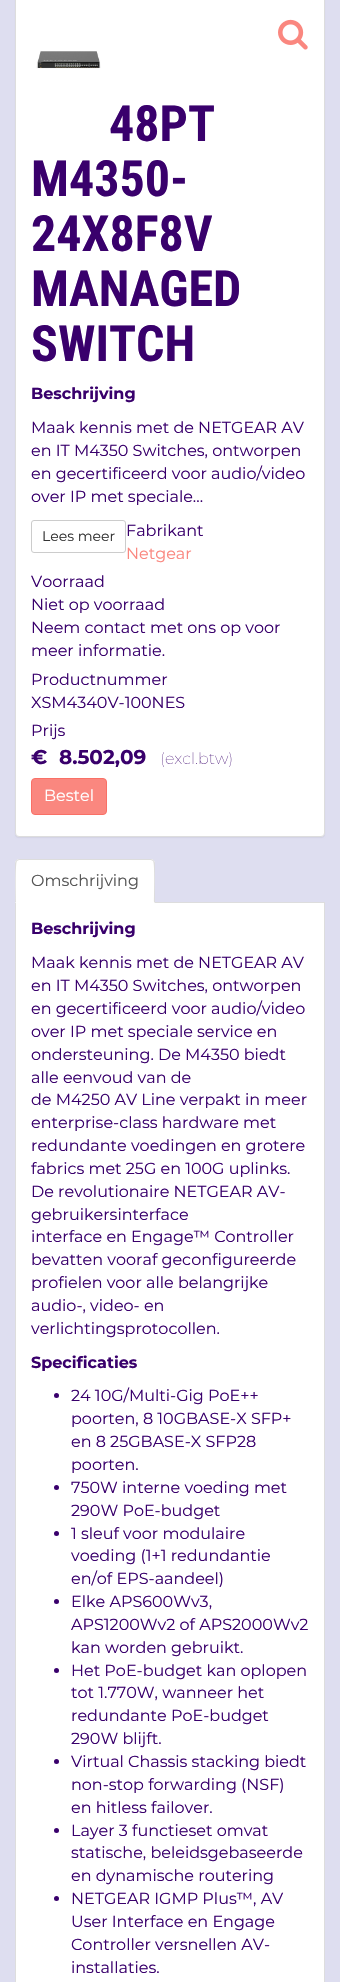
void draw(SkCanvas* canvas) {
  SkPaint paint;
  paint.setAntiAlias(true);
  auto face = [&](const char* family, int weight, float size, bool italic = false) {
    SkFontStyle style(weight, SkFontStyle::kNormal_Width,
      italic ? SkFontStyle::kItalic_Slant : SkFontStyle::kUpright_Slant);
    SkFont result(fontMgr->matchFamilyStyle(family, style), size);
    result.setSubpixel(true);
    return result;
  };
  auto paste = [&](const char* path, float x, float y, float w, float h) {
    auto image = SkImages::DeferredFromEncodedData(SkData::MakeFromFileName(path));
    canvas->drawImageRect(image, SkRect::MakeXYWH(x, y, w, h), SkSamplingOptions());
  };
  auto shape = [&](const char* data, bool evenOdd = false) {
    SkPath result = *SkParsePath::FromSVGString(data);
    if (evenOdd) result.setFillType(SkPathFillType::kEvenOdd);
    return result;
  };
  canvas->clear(0xffdedef0);
  paint.setColor(0x0d000000);
  paint.setMaskFilter(SkMaskFilter::MakeBlur(kNormal_SkBlurStyle, 0.5f));
  canvas->drawRoundRect(SkRect::MakeXYWH(15, -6, 310, 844), 4, 4, paint);
  paint.setMaskFilter(nullptr);
  paint.setColor(0xffffffff);
  canvas->drawRoundRect(SkRect::MakeXYWH(15.5f, -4.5f, 309, 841), 3.5f, 3.5f, paint);
  paint.setStroke(true);
  paint.setStrokeWidth(1);
  paint.setColor(0xffdddddd);
  canvas->drawRoundRect(SkRect::MakeXYWH(15.5f, -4.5f, 309, 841), 3.5f, 3.5f, paint);
  paste("img/1.png", 278, 19, 30, 31);
  paste("img/2.png", 36, 51, 65, 18);
  paint.setColor(0xffcccccc);
  canvas->drawRoundRect(SkRect::MakeXYWH(31.5f, 520.5f, 94, 32), 2.5f, 2.5f, paint);
  paint.setStroke(false);
  paint.setColor(0xfffa877f);
  canvas->drawRoundRect(SkRect::MakeXYWH(31.5f, 778.5f, 75, 36), 3.5f, 3.5f, paint);
  paint.setStroke(true);
  paint.setColor(0xfff97066);
  canvas->drawRoundRect(SkRect::MakeXYWH(31.5f, 778.5f, 75, 36), 3.5f, 3.5f, paint);
  paint.setStroke(false);
  paint.setColor(0xffdddddd);
  canvas->drawRect(SkRect::MakeXYWH(155, 902, 170, 1), paint);
  paint.setColor(0xffffffff);
  canvas->drawPath(shape("M19 859H151C153 859 155 861 155 863V903H15V863C15 861 17 859 19 859Z"), paint);
  paint.setColor(0xffdddddd);
  canvas->drawPath(shape("M19 859L16 860L17 861L19 860H151L153 861L154 860L151 859Z"), paint);
  canvas->drawPath(shape("M155 903V863C155 862 154 861 154 860L153 861C155 863 154 897 154 902Z"), paint);
  canvas->drawPath(shape("M15 903L16 902C16 897 15 863 17 861L16 860L15 863Z"), paint);
  paint.setColor(0xffffffff);
  canvas->drawRect(SkRect::MakeXYWH(16, 903, 308, 1079), paint);
  paint.setColor(0xffdddddd);
  canvas->drawPath(shape("M15 903H325V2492C325 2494 323 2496 321 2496H19C17 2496 15 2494 15 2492ZM16 903H324V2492C324 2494 323 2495 321 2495H19C17 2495 16 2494 16 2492Z", true), paint);
  paint.setColor(0xff39006c);
  canvas->drawCircle(56.5f, 1395.5f, 2.5f, paint);
  canvas->drawCircle(56.5f, 1487.5f, 2.5f, paint);
  canvas->drawCircle(56.5f, 1533.5f, 2.5f, paint);
  canvas->drawCircle(56.5f, 1601.5f, 2.5f, paint);
  canvas->drawCircle(56.5f, 1670.5f, 2.5f, paint);
  canvas->drawCircle(56.5f, 1761.5f, 2.5f, paint);
  canvas->drawCircle(56.5f, 1830.5f, 2.5f, paint);
  canvas->drawCircle(56.5f, 1898.5f, 2.5f, paint);
  auto f0 = face("Roboto Condensed", 700, 50);
  {
    const struct { const char* s; float x, y; } items[] = {
      {"48PT", 109, 141},
      {"M4350-", 31, 196},
      {"24X8F8V", 31, 251},
      {"MANAGED", 31, 306},
      {"SWITCH", 31, 361},
    };
    for (auto [s, x, y] : items) {
      canvas->drawString(s, x, y, f0, paint);
    }
  }
  auto f1 = face("Montserrat", 700, 16);
  canvas->drawString("Beschrijving", 31, 399, f1, paint);
  auto f2 = face("Montserrat", 400, 16);
  {
    const struct { const char* s; float x, y; } items[] = {
      {"Maak kennis met de NETGEAR AV", 31, 433},
      {"en IT M4350 Switches, ontworpen", 31, 456},
      {"en gecertificeerd voor audio/video", 31, 479},
      {"over IP met speciale...", 31, 502},
    };
    for (auto [s, x, y] : items) {
      canvas->drawString(s, x, y, f2, paint);
    }
  }
  auto f3 = face("Montserrat", 400, 14);
  paint.setColor(0xff333333);
  canvas->drawString("Lees meer", 42, 541, f3, paint);
  paint.setColor(0xff39006c);
  canvas->drawString("Fabrikant", 126, 536, f2, paint);
  paint.setColor(0xfffa877f);
  canvas->drawString("Netgear", 126, 559, f2, paint);
  paint.setColor(0xff39006c);
  {
    const struct { const char* s; float x, y; } items[] = {
      {"Voorraad", 31, 587},
      {"Niet op voorraad", 31, 610},
      {"Neem contact met ons op voor", 31, 633},
      {"meer informatie.", 31, 656},
      {"Productnummer", 31, 685},
      {"XSM4340V-100NES", 31, 708},
      {"Prijs", 31, 736},
    };
    for (auto [s, x, y] : items) {
      canvas->drawString(s, x, y, f2, paint);
    }
  }
  auto f4 = face("Montserrat", 700, 20);
  canvas->drawString("€", 31, 764, f4, paint);
  canvas->drawString("8.502,09", 59, 764, f4, paint);
  auto f5 = face("Montserrat", 100, 16);
  canvas->drawString("(excl.btw)", 160, 764, f5, paint);
  paint.setColor(0xffffffff);
  canvas->drawString("Bestel", 44, 801, f2, paint);
  paint.setColor(0xff555555);
  canvas->drawString("Omschrijving", 31, 886, f2, paint);
  paint.setColor(0xff39006c);
  canvas->drawString("Beschrijving", 31, 934, f1, paint);
  {
    const struct { const char* s; float x, y; } items[] = {
      {"Maak kennis met de NETGEAR AV", 31, 968},
      {"en IT M4350 Switches, ontworpen", 31, 991},
      {"en gecertificeerd voor audio/video", 31, 1014},
      {"over IP met speciale service en", 31, 1037},
      {"ondersteuning. De M4350 biedt", 31, 1060},
      {"alle eenvoud van de", 31, 1083},
      {"de M4250 AV Line verpakt in meer", 31, 1105},
      {"enterprise-class hardware met", 31, 1128},
      {"redundante voedingen en grotere", 31, 1151},
      {"fabrics met 25G en 100G uplinks.", 31, 1174},
      {"De revolutionaire NETGEAR AV-", 31, 1197},
      {"gebruikersinterface", 31, 1220},
      {"interface en Engage™ Controller", 31, 1242},
      {"bevatten vooraf geconfigureerde", 31, 1265},
      {"profielen voor alle belangrijke", 31, 1288},
      {"audio-, video- en", 31, 1311},
      {"verlichtingsprotocollen.", 31, 1334},
    };
    for (auto [s, x, y] : items) {
      canvas->drawString(s, x, y, f2, paint);
    }
  }
  canvas->drawString("Specificaties", 31, 1368, f1, paint);
  {
    const struct { const char* s; float x, y; } items[] = {
      {"24 10G/Multi-Gig PoE++", 71, 1401},
      {"poorten, 8 10GBASE-X SFP+", 71, 1424},
      {"en 8 25GBASE-X SFP28", 71, 1447},
      {"poorten.", 71, 1470},
      {"750W interne voeding met", 71, 1493},
      {"290W PoE-budget", 71, 1516},
      {"1 sleuf voor modulaire", 71, 1539},
      {"voeding (1+1 redundantie", 71, 1561},
      {"en/of EPS-aandeel)", 71, 1584},
      {"Elke APS600Wv3,", 71, 1607},
      {"APS1200Wv2 of APS2000Wv2", 71, 1630},
      {"kan worden gebruikt.", 71, 1653},
      {"Het PoE-budget kan oplopen", 71, 1676},
      {"tot 1.770W, wanneer het", 71, 1698},
      {"redundante PoE-budget", 71, 1721},
      {"290W blijft.", 71, 1744},
      {"Virtual Chassis stacking biedt", 71, 1767},
      {"non-stop forwarding (NSF)", 71, 1790},
      {"en hitless failover.", 71, 1813},
      {"Layer 3 functieset omvat", 71, 1836},
      {"statische, beleidsgebaseerde", 71, 1858},
      {"en dynamische routering", 71, 1881},
      {"NETGEAR IGMP Plus™, AV", 71, 1904},
      {"User Interface en Engage", 71, 1927},
      {"Controller versnellen AV-", 71, 1950},
      {"installaties.", 71, 1973},
    };
    for (auto [s, x, y] : items) {
      canvas->drawString(s, x, y, f2, paint);
    }
  }
}
